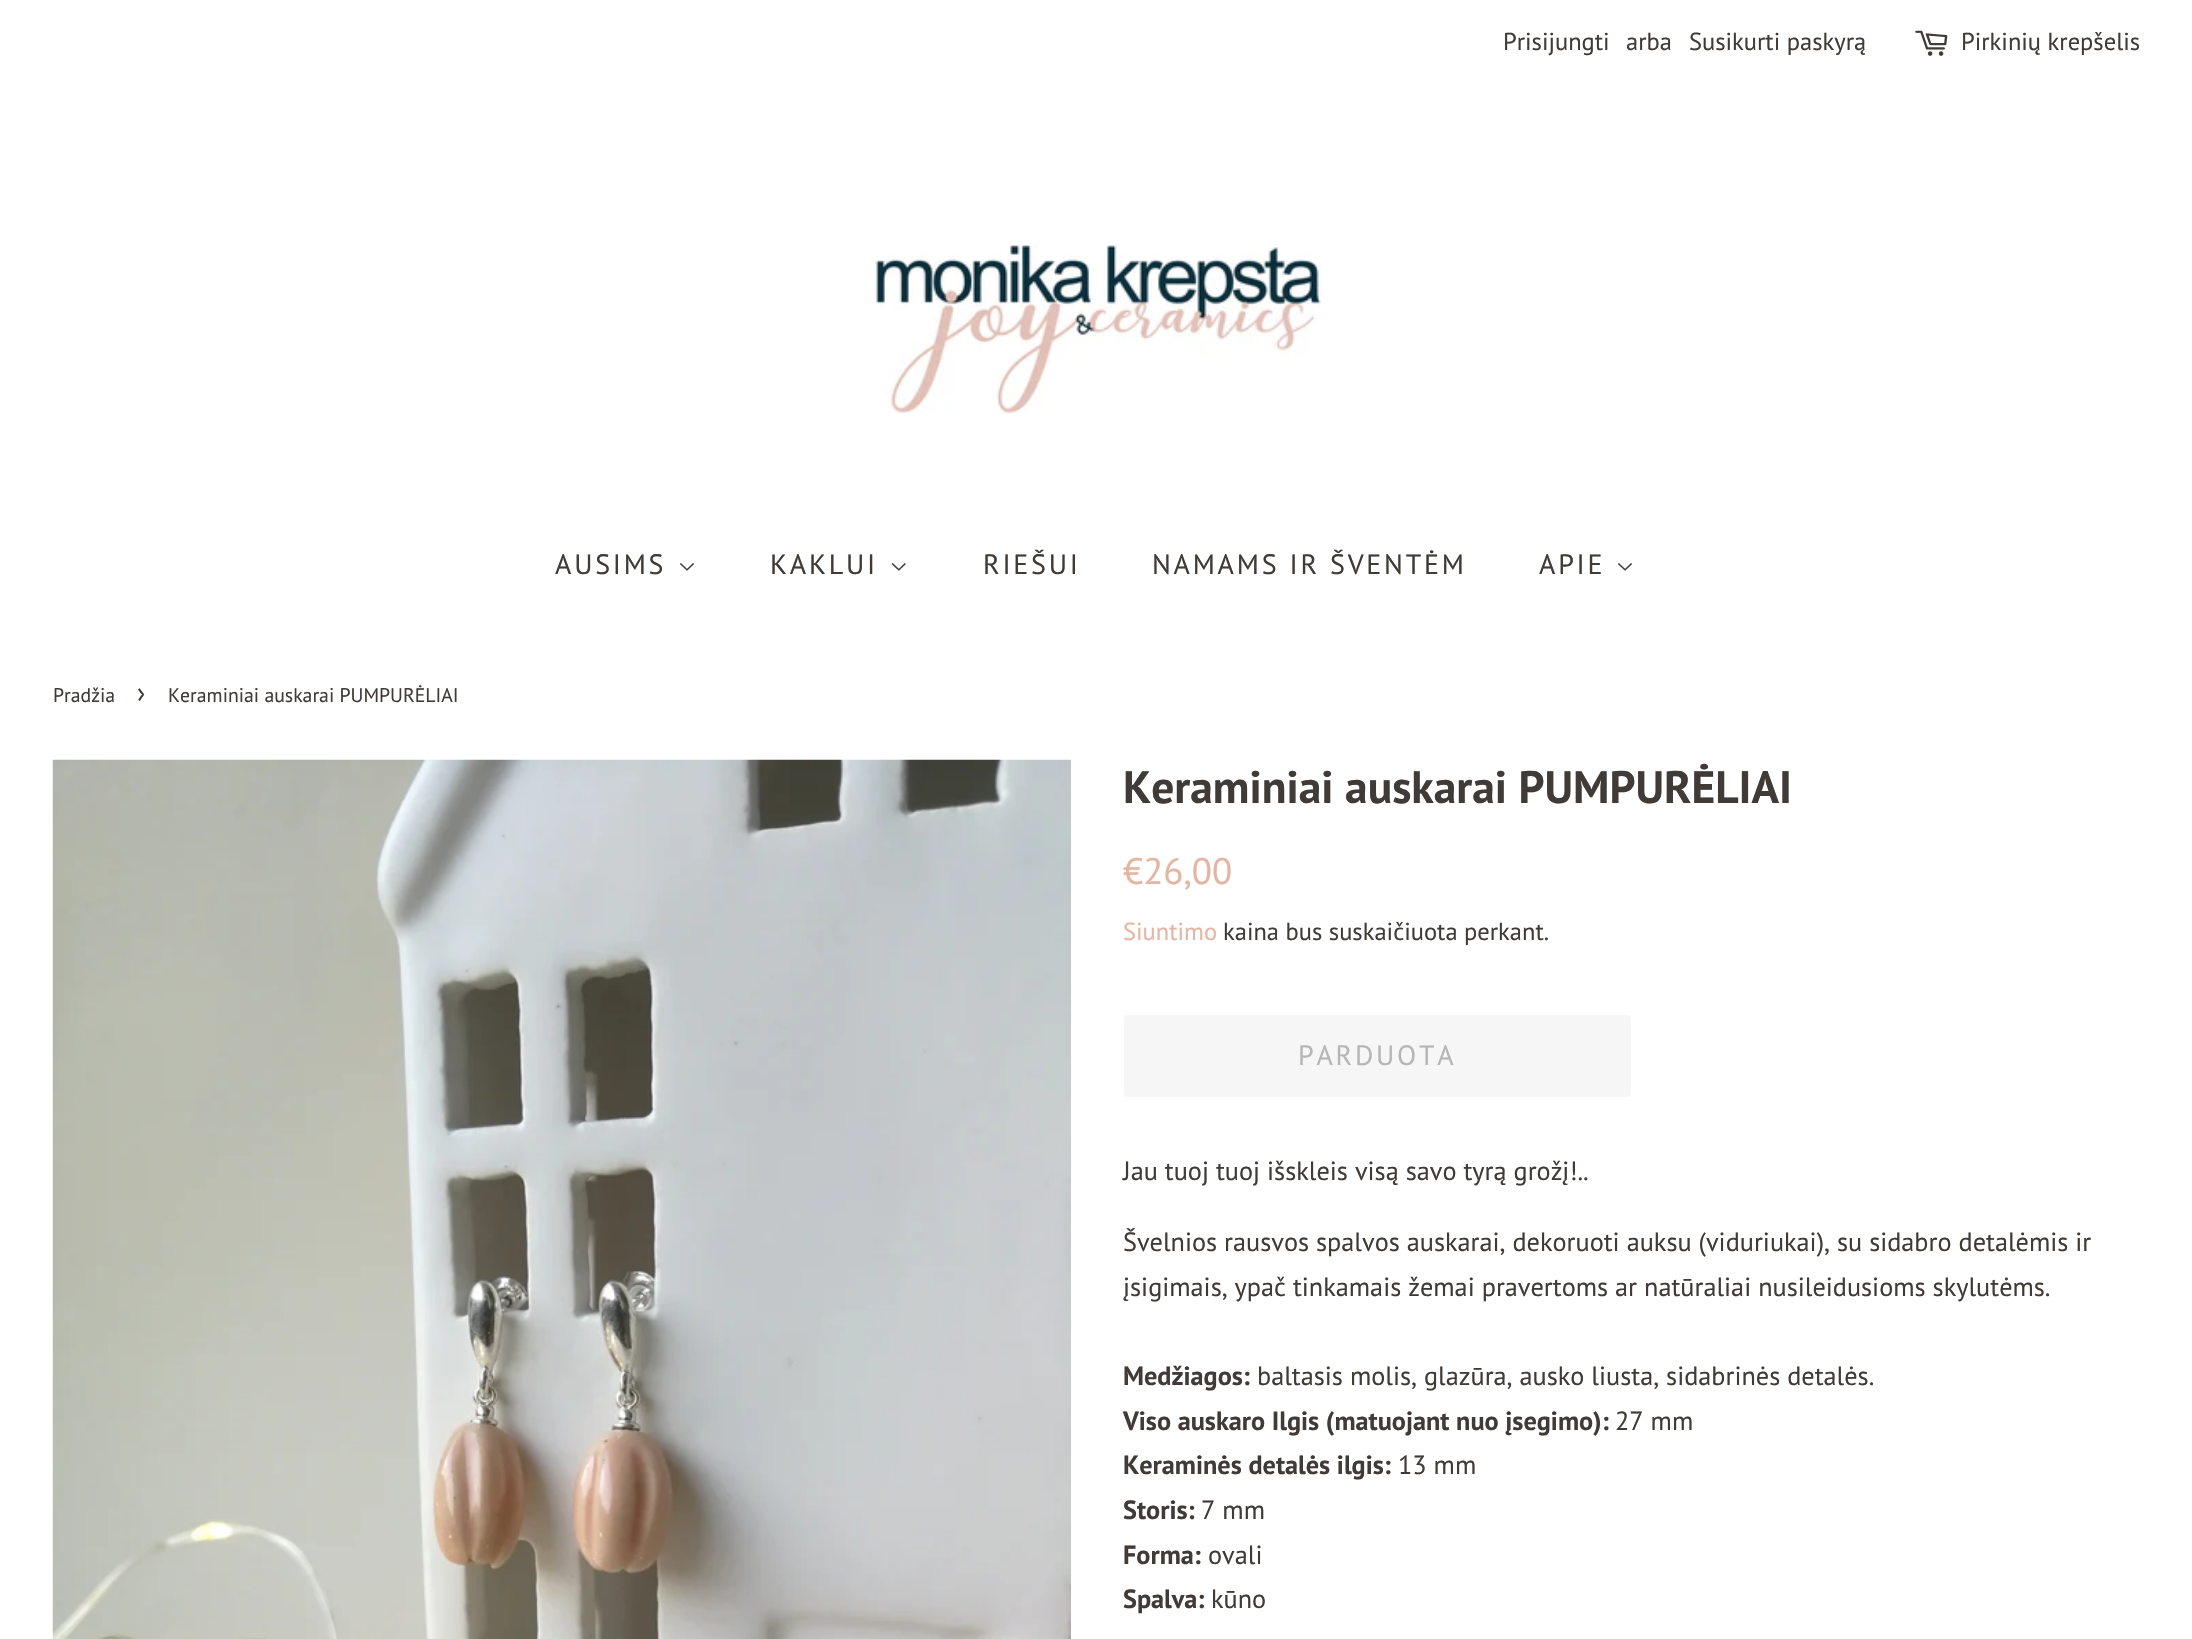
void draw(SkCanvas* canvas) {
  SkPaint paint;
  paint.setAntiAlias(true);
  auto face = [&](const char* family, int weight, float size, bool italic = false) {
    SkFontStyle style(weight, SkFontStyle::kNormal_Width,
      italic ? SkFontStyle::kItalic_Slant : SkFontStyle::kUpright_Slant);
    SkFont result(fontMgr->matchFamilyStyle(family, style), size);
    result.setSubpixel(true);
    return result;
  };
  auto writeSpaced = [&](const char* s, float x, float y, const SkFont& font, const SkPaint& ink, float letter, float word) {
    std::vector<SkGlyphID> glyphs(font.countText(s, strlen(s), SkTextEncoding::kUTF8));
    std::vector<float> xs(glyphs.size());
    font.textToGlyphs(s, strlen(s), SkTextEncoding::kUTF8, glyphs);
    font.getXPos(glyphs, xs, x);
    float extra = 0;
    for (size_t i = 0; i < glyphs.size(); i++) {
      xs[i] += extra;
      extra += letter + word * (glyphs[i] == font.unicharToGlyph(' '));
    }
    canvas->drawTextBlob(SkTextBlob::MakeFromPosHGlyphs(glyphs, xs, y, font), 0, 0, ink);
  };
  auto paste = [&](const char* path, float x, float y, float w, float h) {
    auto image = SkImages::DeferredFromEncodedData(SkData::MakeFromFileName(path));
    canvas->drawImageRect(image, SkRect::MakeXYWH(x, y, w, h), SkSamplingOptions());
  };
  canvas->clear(0xffffffff);
  paste("img/1.png", 1915, 30, 33, 26);
  paste("img/2.png", 873, 241, 450, 173);
  paste("img/3.png", 680, 563, 14, 8);
  paste("img/4.png", 891, 563, 15, 8);
  paste("img/3.png", 1618, 563, 14, 8);
  paste("img/5.png", 52, 759, 1019, 880);
  paint.setColor(0xfff6f6f6);
  canvas->drawRoundRect(SkRect::MakeXYWH(1124, 1015, 507, 82), 4, 4, paint);
  auto f0 = face("PT Sans", 400, 24.5f);
  paint.setColor(0xff403b37);
  {
    const struct { const char* s; float x, y; } items[] = {
      {"Prisijungti", 1503, 50},
      {"arba", 1626, 50},
      {"Susikurti paskyrą", 1689, 50},
      {"Pirkinių krepšelis", 1961, 50},
    };
    for (auto [s, x, y] : items) {
      canvas->drawString(s, x, y, f0, paint);
    }
  }
  auto f1 = face("PT Sans", 400, 28);
  {
    const struct { const char* s; float x, y; } items[] = {
      {"AUSIMS", 555, 574},
      {"KAKLUI", 770, 574},
      {"RIEŠUI", 983, 574},
      {"NAMAMS IR ŠVENTĖM", 1152, 574},
      {"APIE", 1539, 574},
    };
    for (auto [s, x, y] : items) {
      writeSpaced(s, x, y, f1, paint, 2.75f, 0);
    }
  }
  auto f2 = face("PT Sans", 400, 19.75f);
  canvas->drawString("Pradžia", 53, 702, f2, paint);
  canvas->drawString("›", 137, 702, f1, paint);
  canvas->drawString("Keraminiai auskarai PUMPURĖLIAI", 168, 702, f2, paint);
  auto f3 = face("PT Sans", 700, 45.5f);
  canvas->drawString("Keraminiai auskarai PUMPURĖLIAI", 1123, 803, f3, paint);
  auto f4 = face("PT Sans", 400, 37);
  paint.setColor(0xffe6b5a1);
  canvas->drawString("€26,00", 1123, 884, f4, paint);
  canvas->drawString("Siuntimo", 1123, 940, f0, paint);
  paint.setColor(0xff403b37);
  canvas->drawString("kaina bus suskaičiuota perkant.", 1223, 940, f0, paint);
  paint.setColor(0xffb6b6b6);
  writeSpaced("PARDUOTA", 1298, 1065, f1, paint, 2.75f, 0);
  auto f5 = face("PT Sans", 400, 26.25f);
  paint.setColor(0xff403b37);
  {
    const struct { const char* s; float x, y; } items[] = {
      {"Jau tuoj tuoj išskleis visą savo tyrą grožį!..", 1123, 1180},
      {"Švelnios rausvos spalvos auskarai, dekoruoti auksu (viduriukai), su sidabro detalėmis ir", 1123, 1251},
      {"įsigimais, ypač tinkamais žemai pravertoms ar natūraliai nusileidusioms skylutėms.", 1123, 1296},
    };
    for (auto [s, x, y] : items) {
      canvas->drawString(s, x, y, f5, paint);
    }
  }
  auto f6 = face("PT Sans", 700, 26.25f);
  canvas->drawString("Medžiagos:", 1123, 1385, f6, paint);
  canvas->drawString("baltasis molis, glazūra, ausko liusta, sidabrinės detalės.", 1257, 1385, f5, paint);
  canvas->drawString("Viso auskaro Ilgis (matuojant nuo įsegimo):", 1123, 1430, f6, paint);
  canvas->drawString("27 mm", 1615, 1430, f5, paint);
  canvas->drawString("Keraminės detalės ilgis:", 1123, 1474, f6, paint);
  canvas->drawString("13 mm", 1398, 1474, f5, paint);
  canvas->drawString("Storis:", 1123, 1519, f6, paint);
  canvas->drawString("7 mm", 1201, 1519, f5, paint);
  canvas->drawString("Forma:", 1123, 1564, f6, paint);
  canvas->drawString("ovali", 1208, 1564, f5, paint);
  canvas->drawString("Spalva:", 1123, 1608, f6, paint);
  canvas->drawString("kūno", 1211, 1608, f5, paint);
}
